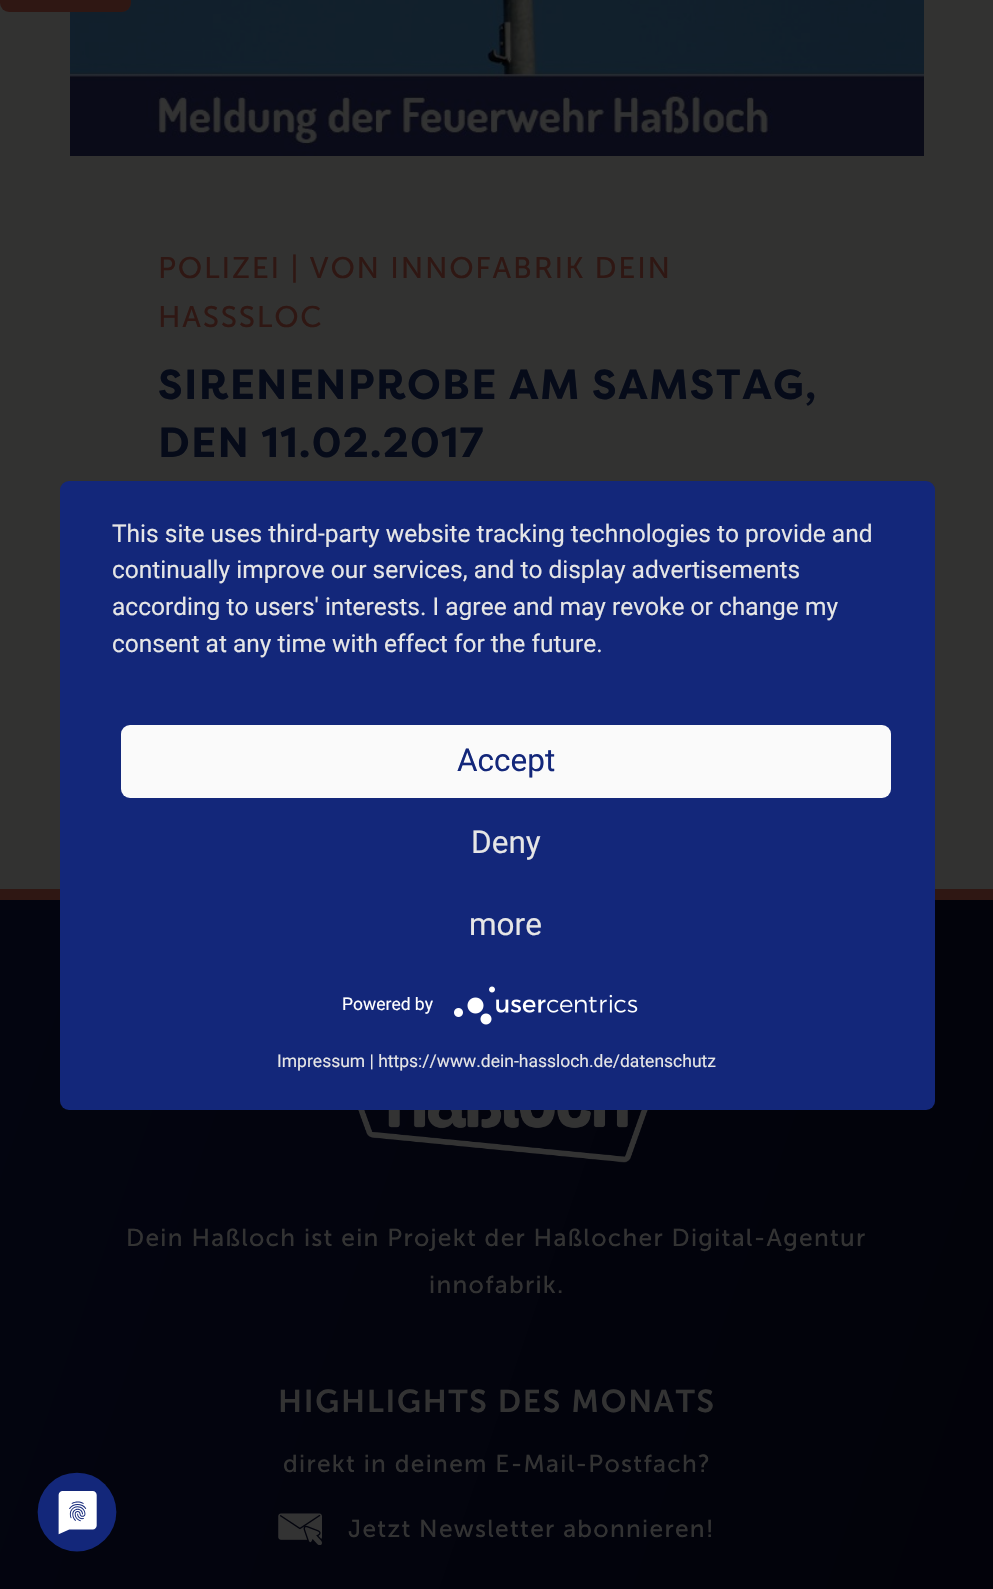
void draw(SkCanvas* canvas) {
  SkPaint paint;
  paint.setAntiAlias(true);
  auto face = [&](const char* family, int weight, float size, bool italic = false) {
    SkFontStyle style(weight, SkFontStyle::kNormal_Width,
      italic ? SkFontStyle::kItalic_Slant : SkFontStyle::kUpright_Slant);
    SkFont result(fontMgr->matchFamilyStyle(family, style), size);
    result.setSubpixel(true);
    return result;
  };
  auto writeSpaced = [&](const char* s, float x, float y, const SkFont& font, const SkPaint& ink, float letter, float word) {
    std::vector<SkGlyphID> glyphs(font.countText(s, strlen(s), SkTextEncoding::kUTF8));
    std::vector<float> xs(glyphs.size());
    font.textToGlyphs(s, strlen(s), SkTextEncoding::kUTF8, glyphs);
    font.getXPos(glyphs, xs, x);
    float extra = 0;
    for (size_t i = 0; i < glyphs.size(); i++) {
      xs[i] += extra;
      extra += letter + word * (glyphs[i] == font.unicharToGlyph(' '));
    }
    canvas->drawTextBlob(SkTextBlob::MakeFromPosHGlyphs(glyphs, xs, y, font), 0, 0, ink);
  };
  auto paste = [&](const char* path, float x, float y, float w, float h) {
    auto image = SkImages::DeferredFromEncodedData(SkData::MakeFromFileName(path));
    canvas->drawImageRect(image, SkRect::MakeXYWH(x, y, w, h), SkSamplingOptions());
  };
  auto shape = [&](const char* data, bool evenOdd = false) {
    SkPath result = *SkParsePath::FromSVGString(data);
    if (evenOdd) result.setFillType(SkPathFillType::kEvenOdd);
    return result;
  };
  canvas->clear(0xff323231);
  paste("img/1.png", 70, 0, 854, 156);
  paint.setColor(0xff2f1713);
  canvas->drawRoundRect(SkRect::MakeXYWH(0, -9, 131, 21), 9, 9, paint);
  {
    const SkColor colors[] = {0xff030510, 0xff020209};
    const float stops[] = {0, 1};
    const SkPoint ends[] = {{-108, 1212}, {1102, 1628}};
    paint.setShader(SkGradientShader::MakeLinear(ends, colors, stops, 2, SkTileMode::kClamp));
    paint.setAlpha(255);
  }
  canvas->drawRect(SkRect::MakeXYWH(0, 900, 993, 689), paint);
  paint.setShader(nullptr);
  paint.setColor(0xff2f1713);
  canvas->drawRect(SkRect::MakeXYWH(0, 889, 993, 11), paint);
  paste("img/4.png", 358, 1110, 290, 53);
  canvas->save();
  canvas->clipPath(shape("M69 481H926C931 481 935 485 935 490V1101C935 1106 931 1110 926 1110H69C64 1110 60 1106 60 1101V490C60 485 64 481 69 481Z"), true);
  paint.setColor(0x4d000000);
  paint.setMaskFilter(SkMaskFilter::MakeBlur(kNormal_SkBlurStyle, 31.5f));
  canvas->drawRect(SkRect::MakeXYWH(60, 492, 875, 628), paint);
  paint.setMaskFilter(nullptr);
  canvas->restore();
  paint.setColor(0xff13277a);
  canvas->drawRoundRect(SkRect::MakeXYWH(60, 481, 875, 629), 9, 9, paint);
  paint.setColor(0xfffafafa);
  canvas->drawRoundRect(SkRect::MakeXYWH(121, 725, 770, 73), 9, 9, paint);
  paste("img/2.png", 454, 986, 184, 39);
  paste("img/3.png", 37, 1472, 80, 80);
  paste("img/5.png", 278, 1513, 44, 32);
  auto f0 = face("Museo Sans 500", 400, 29.75f);
  paint.setColor(0xff2f1713);
  writeSpaced("POLIZEI | VON INNOFABRIK DEIN", 158, 278, f0, paint, 1.75f, 0);
  writeSpaced("HASSSLOC", 158, 327, f0, paint, 1.75f, 0);
  auto f1 = face("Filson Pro", 700, 42);
  paint.setColor(0xff060b19);
  writeSpaced("SIRENENPROBE AM SAMSTAG,", 158, 399, f1, paint, 1.3f, 0);
  writeSpaced("DEN 11.02.2017", 158, 457, f1, paint, 1.3f, 0);
  auto f2 = face("Roboto", 400, 24.5f);
  paint.setColor(0xffe6e6e6);
  {
    const struct { const char* s; float x, y; } items[] = {
      {"This site uses third-party website tracking technologies to provide and", 112, 542},
      {"continually improve our services, and to display advertisements", 112, 578},
      {"according to users' interests. I agree and may revoke or change my", 112, 615},
      {"consent at any time with effect for the future.", 112, 652},
    };
    for (auto [s, x, y] : items) {
      canvas->drawString(s, x, y, f2, paint);
    }
  }
  auto f3 = face("Roboto", 400, 31.5f);
  paint.setColor(0xff13277a);
  canvas->drawString("Accept", 457, 771, f3, paint);
  paint.setColor(0xffe6e6e6);
  canvas->drawString("Deny", 471, 853, f3, paint);
  canvas->drawString("more", 469, 935, f3, paint);
  auto f4 = face("Roboto", 400, 17.5f);
  paint.setColor(0xffffffff);
  canvas->drawString("Powered by", 342, 1010, f4, paint);
  paint.setColor(0xffe6e6e6);
  canvas->drawString("Impressum | https://www.dein-hassloch.de/datenschutz", 277, 1067, f4, paint);
  auto f5 = face("Museo Sans 500", 400, 24.5f);
  paint.setColor(0xff333333);
  writeSpaced("Dein Haßloch ist ein Projekt der Haßlocher Digital-Agentur", 126, 1246, f5, paint, 1.3f, 0);
  writeSpaced("innofabrik.", 429, 1293, f5, paint, 1.3f, 0);
  auto f6 = face("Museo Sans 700", 600, 31.5f);
  writeSpaced("HIGHLIGHTS DES MONATS", 278, 1412, f6, paint, 1.75f, 0);
  writeSpaced("direkt in deinem E-Mail-Postfach?", 283, 1472, f5, paint, 1.3f, 0);
  writeSpaced("Jetzt Newsletter abonnieren!", 348, 1537, f5, paint, 1.3f, 0);
}
